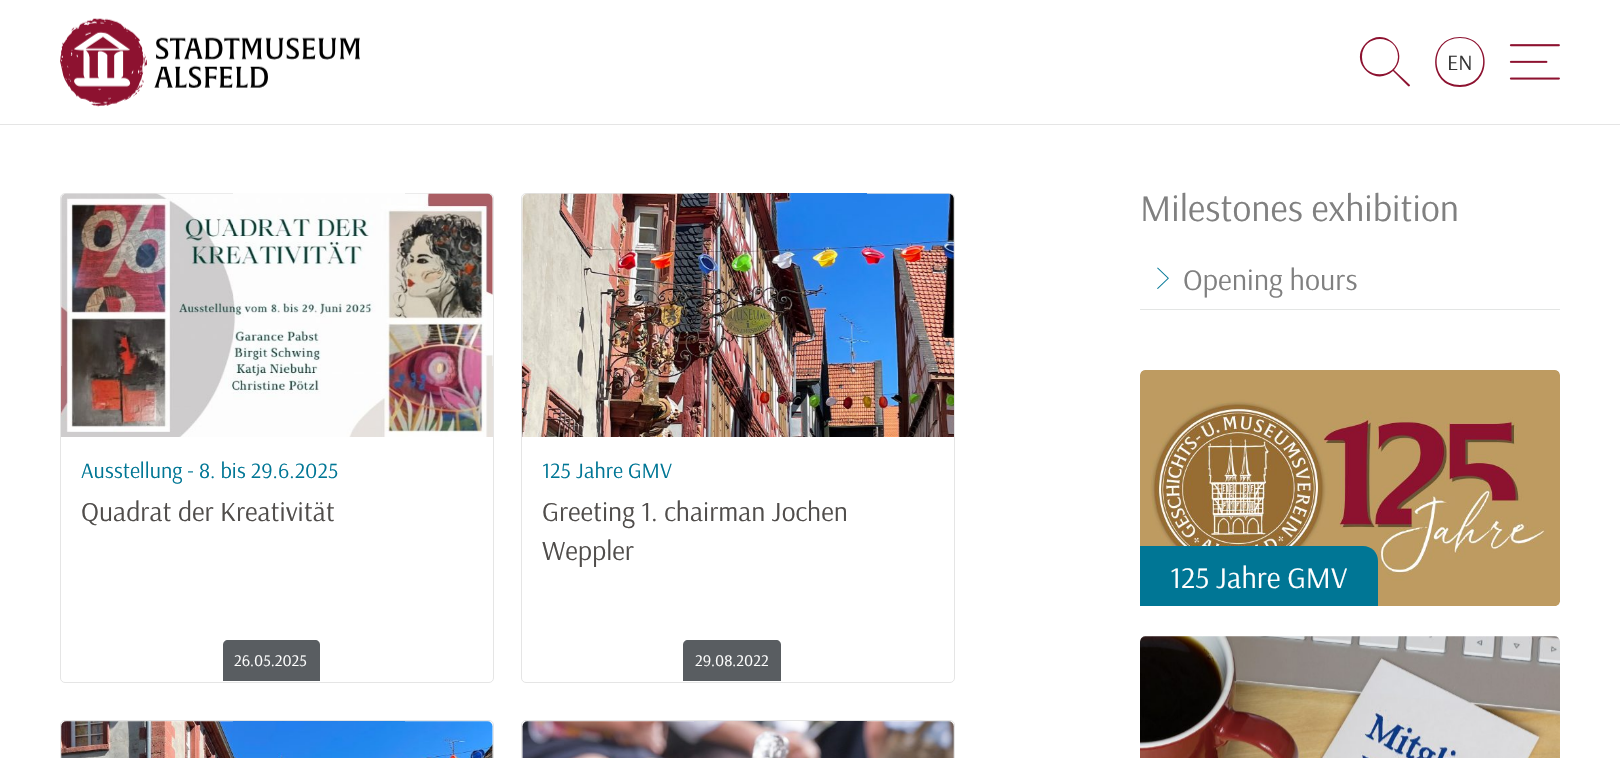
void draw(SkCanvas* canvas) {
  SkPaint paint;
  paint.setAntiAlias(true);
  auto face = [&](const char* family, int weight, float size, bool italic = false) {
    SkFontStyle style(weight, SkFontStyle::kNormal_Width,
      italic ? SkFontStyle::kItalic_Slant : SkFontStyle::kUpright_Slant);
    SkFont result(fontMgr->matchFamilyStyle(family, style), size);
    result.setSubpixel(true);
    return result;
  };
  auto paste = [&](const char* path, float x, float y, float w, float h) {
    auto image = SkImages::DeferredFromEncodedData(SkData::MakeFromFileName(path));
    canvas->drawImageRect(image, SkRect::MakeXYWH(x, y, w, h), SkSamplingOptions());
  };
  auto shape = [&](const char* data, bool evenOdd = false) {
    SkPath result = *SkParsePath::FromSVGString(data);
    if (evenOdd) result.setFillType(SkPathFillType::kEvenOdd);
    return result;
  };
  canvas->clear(0xffffffff);
  paint.setColor(0xffe5e5e5);
  canvas->drawRect(SkRect::MakeXYWH(0, 124, 1620, 1), paint);
  paste("img/1.png", 60, 18, 300, 89);
  paint.setColor(0xff8d1230);
  canvas->drawPath(shape("M1410 85L1394 70C1411 51 1384 25 1366 43C1348 61 1374 88 1393 71L1408 86C1409 87 1410 86 1410 85ZM1362 57C1362 33 1398 33 1398 57C1397 80 1362 80 1362 57Z"), paint);
  canvas->drawPath(shape("M1460 37C1427 37 1427 87 1460 87C1493 87 1493 37 1460 37ZM1460 85C1429 85 1429 38 1460 38C1491 38 1491 85 1460 85Z"), paint);
  paste("img/2.png", 1509, 44, 51, 36);
  paint.setStroke(true);
  paint.setStrokeWidth(1);
  paint.setColor(0xffe5e5e5);
  canvas->drawRoundRect(SkRect::MakeXYWH(60.5f, 193.5f, 433, 489), 4.5f, 4.5f, paint);
  paste("img/3.png", 61, 193, 432, 244);
  paint.setStroke(false);
  paint.setColor(0xff595d61);
  canvas->drawPath(shape("M228 640H315C318 640 320 642 320 645V681H223V645C223 642 225 640 228 640Z"), paint);
  paint.setStroke(true);
  paint.setColor(0xffe5e5e5);
  canvas->drawRoundRect(SkRect::MakeXYWH(521.5f, 193.5f, 433, 489), 4.5f, 4.5f, paint);
  paste("img/4.png", 522, 193, 432, 244);
  paint.setStroke(false);
  paint.setColor(0xff595d61);
  canvas->drawPath(shape("M688 640H776C779 640 781 642 781 645V681H683V645C683 642 685 640 688 640Z"), paint);
  paint.setStroke(true);
  paint.setColor(0xffe5e5e5);
  canvas->drawRoundRect(SkRect::MakeXYWH(60.5f, 720.5f, 433, 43), 4.5f, 4.5f, paint);
  paste("img/5.png", 61, 721, 432, 37);
  canvas->drawRoundRect(SkRect::MakeXYWH(521.5f, 720.5f, 433, 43), 4.5f, 4.5f, paint);
  paste("img/6.png", 522, 721, 432, 37);
  paint.setStroke(false);
  paint.setColor(0xffe3e5e4);
  canvas->drawRect(SkRect::MakeXYWH(1140, 309, 420, 1), paint);
  paste("img/7.png", 1157, 267, 12, 22);
  paste("img/8.png", 1140, 370, 420, 236);
  paint.setColor(0xff007695);
  canvas->drawPath(shape("M1140 546H1363C1371.5 546 1378 552.5 1378 561V606H1140Z"), paint);
  paste("img/9.png", 1140, 636, 420, 122);
  auto f0 = face("Arsenal", 400, 22);
  paint.setColor(0xff333333);
  canvas->drawString("EN", 1447, 70, f0, paint);
  paint.setColor(0xff007695);
  canvas->drawString("Ausstellung - 8. bis 29.6.2025", 81, 478, f0, paint);
  auto f1 = face("Arsenal", 400, 27.5f);
  paint.setColor(0xff504d4b);
  canvas->drawString("Quadrat der Kreativität", 81, 521, f1, paint);
  auto f2 = face("Arsenal", 400, 16.25f);
  paint.setColor(0xffffffff);
  canvas->drawString("26.05.2025", 234, 666, f2, paint);
  paint.setColor(0xff007695);
  canvas->drawString("125 Jahre GMV", 542, 478, f0, paint);
  paint.setColor(0xff504d4b);
  canvas->drawString("Greeting 1. chairman Jochen", 542, 521, f1, paint);
  canvas->drawString("Weppler", 542, 560, f1, paint);
  paint.setColor(0xffffffff);
  canvas->drawString("29.08.2022", 695, 666, f2, paint);
  auto f3 = face("Arsenal", 400, 37.5f);
  paint.setColor(0xff808080);
  canvas->drawString("Milestones exhibition", 1140, 221, f3, paint);
  auto f4 = face("Arsenal", 400, 30);
  canvas->drawString("Opening hours", 1183, 290, f4, paint);
  paint.setColor(0xffffffff);
  canvas->drawString("125 Jahre GMV", 1170, 588, f4, paint);
}
